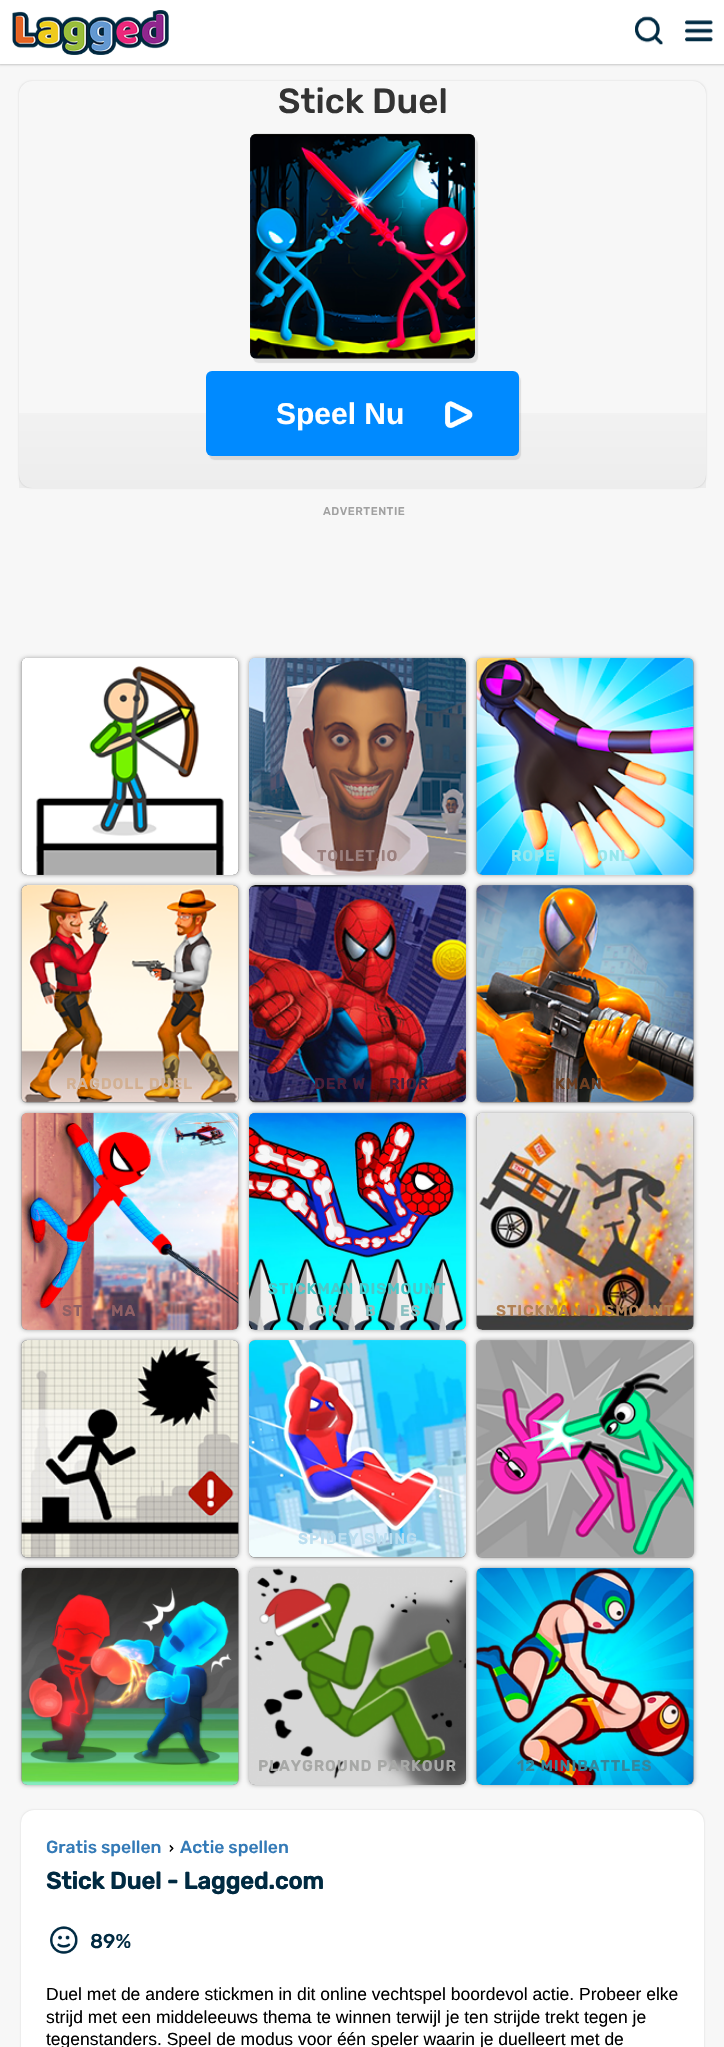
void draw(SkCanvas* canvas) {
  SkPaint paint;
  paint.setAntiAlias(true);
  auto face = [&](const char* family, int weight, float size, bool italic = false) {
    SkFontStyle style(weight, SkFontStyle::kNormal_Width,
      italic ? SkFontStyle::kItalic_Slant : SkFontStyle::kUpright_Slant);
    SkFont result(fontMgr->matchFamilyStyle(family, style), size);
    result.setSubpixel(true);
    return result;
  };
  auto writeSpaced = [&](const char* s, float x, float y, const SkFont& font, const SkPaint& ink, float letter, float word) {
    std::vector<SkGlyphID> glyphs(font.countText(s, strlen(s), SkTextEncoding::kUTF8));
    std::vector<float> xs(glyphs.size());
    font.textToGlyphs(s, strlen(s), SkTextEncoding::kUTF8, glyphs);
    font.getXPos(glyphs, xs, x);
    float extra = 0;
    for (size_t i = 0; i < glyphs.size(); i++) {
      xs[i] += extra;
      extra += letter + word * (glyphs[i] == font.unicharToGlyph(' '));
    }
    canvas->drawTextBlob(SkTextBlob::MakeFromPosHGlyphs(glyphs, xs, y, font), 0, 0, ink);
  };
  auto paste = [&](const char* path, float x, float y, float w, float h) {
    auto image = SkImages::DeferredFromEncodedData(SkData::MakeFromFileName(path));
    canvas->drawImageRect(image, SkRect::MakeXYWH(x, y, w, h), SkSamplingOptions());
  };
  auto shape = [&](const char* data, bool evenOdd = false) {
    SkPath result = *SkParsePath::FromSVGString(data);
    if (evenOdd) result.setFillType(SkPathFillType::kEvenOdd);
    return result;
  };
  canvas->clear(0xfff7f7f7);
  paint.setColor(0x33000000);
  paint.setMaskFilter(SkMaskFilter::MakeBlur(kNormal_SkBlurStyle, 1));
  canvas->drawRect(SkRect::MakeXYWH(-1, -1, 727, 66), paint);
  paint.setMaskFilter(nullptr);
  paint.setColor(0xffffffff);
  canvas->drawRect(SkRect::MakeXYWH(0, 0, 724, 64), paint);
  paste("img/1.png", 12, 10, 157, 45);
  paste("img/2.png", 635, 16, 28, 29);
  paste("img/3.png", 685, 20, 28, 22);
  canvas->save();
  canvas->clipPath(shape("M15 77H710V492H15ZM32 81H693C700 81 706 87 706 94V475C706 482 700 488 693 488H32C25 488 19 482 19 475V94C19 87 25 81 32 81Z", true), true);
  paint.setColor(0x26000000);
  paint.setMaskFilter(SkMaskFilter::MakeBlur(kNormal_SkBlurStyle, 1));
  canvas->drawRoundRect(SkRect::MakeXYWH(19, 81, 687, 407), 13, 13, paint);
  paint.setMaskFilter(nullptr);
  canvas->restore();
  {
    const SkColor colors[] = {0x00000000, 0x0a000000};
    const float stops[] = {0.6f, 1};
    const SkPoint ends[] = {{363, 81}, {363, 488}};
    paint.setShader(SkGradientShader::MakeLinear(ends, colors, stops, 2, SkTileMode::kClamp));
    paint.setAlpha(255);
  }
  canvas->drawRect(SkRect::MakeXYWH(19, 413, 687, 75), paint);
  paint.setShader(nullptr);
  paint.setColor(0x1a000000);
  paint.setMaskFilter(SkMaskFilter::MakeBlur(kNormal_SkBlurStyle, 0.5f));
  canvas->drawRoundRect(SkRect::MakeXYWH(253, 138, 225, 225), 6, 6, paint);
  paint.setMaskFilter(nullptr);
  paste("img/4.png", 250, 133, 225, 226);
  paint.setMaskFilter(SkMaskFilter::MakeBlur(kNormal_SkBlurStyle, 0.5f));
  canvas->drawRoundRect(SkRect::MakeXYWH(209, 375, 312, 85), 6, 6, paint);
  paint.setMaskFilter(nullptr);
  paint.setColor(0xff008aff);
  canvas->drawRoundRect(SkRect::MakeXYWH(206, 371, 313, 85), 6, 6, paint);
  paste("img/5.png", 445, 401, 28, 27);
  paint.setColor(0x59000000);
  paint.setMaskFilter(SkMaskFilter::MakeBlur(kNormal_SkBlurStyle, 2));
  canvas->drawRoundRect(SkRect::MakeXYWH(21, 658, 218, 217), 6, 6, paint);
  paint.setMaskFilter(nullptr);
  paint.setColor(0x2e000000);
  canvas->drawRoundRect(SkRect::MakeXYWH(21, 658, 218, 217), 6, 6, paint);
  paste("img/6.png", 21, 658, 218, 217);
  paint.setColor(0x59000000);
  paint.setMaskFilter(SkMaskFilter::MakeBlur(kNormal_SkBlurStyle, 2));
  canvas->drawRoundRect(SkRect::MakeXYWH(249, 658, 217, 217), 6, 6, paint);
  paint.setMaskFilter(nullptr);
  paint.setColor(0x2e000000);
  canvas->drawRoundRect(SkRect::MakeXYWH(249, 658, 217, 217), 6, 6, paint);
  paste("img/7.png", 249, 657, 217, 218);
  paint.setColor(0x59000000);
  paint.setMaskFilter(SkMaskFilter::MakeBlur(kNormal_SkBlurStyle, 2));
  canvas->drawRoundRect(SkRect::MakeXYWH(476, 658, 218, 217), 6, 6, paint);
  paint.setMaskFilter(nullptr);
  paint.setColor(0x2e000000);
  canvas->drawRoundRect(SkRect::MakeXYWH(476, 658, 218, 217), 6, 6, paint);
  paste("img/8.png", 476, 657, 218, 218);
  paint.setColor(0x59000000);
  paint.setMaskFilter(SkMaskFilter::MakeBlur(kNormal_SkBlurStyle, 2));
  canvas->drawRoundRect(SkRect::MakeXYWH(21, 885, 218, 218), 6, 6, paint);
  paint.setMaskFilter(nullptr);
  paint.setColor(0x2e000000);
  canvas->drawRoundRect(SkRect::MakeXYWH(21, 885, 218, 218), 6, 6, paint);
  paste("img/9.png", 21, 885, 218, 218);
  paint.setColor(0x59000000);
  paint.setMaskFilter(SkMaskFilter::MakeBlur(kNormal_SkBlurStyle, 2));
  canvas->drawRoundRect(SkRect::MakeXYWH(249, 885, 217, 218), 6, 6, paint);
  paint.setMaskFilter(nullptr);
  paint.setColor(0x2e000000);
  canvas->drawRoundRect(SkRect::MakeXYWH(249, 885, 217, 218), 6, 6, paint);
  paste("img/10.png", 249, 885, 217, 218);
  paint.setColor(0x59000000);
  paint.setMaskFilter(SkMaskFilter::MakeBlur(kNormal_SkBlurStyle, 2));
  canvas->drawRoundRect(SkRect::MakeXYWH(476, 885, 218, 218), 6, 6, paint);
  paint.setMaskFilter(nullptr);
  paint.setColor(0x2e000000);
  canvas->drawRoundRect(SkRect::MakeXYWH(476, 885, 218, 218), 6, 6, paint);
  paste("img/11.png", 476, 885, 218, 218);
  paint.setColor(0x59000000);
  paint.setMaskFilter(SkMaskFilter::MakeBlur(kNormal_SkBlurStyle, 2));
  canvas->drawRoundRect(SkRect::MakeXYWH(21, 1113, 218, 217), 6, 6, paint);
  paint.setMaskFilter(nullptr);
  paint.setColor(0x2e000000);
  canvas->drawRoundRect(SkRect::MakeXYWH(21, 1113, 218, 217), 6, 6, paint);
  paste("img/12.png", 21, 1112, 218, 218);
  paint.setColor(0x59000000);
  paint.setMaskFilter(SkMaskFilter::MakeBlur(kNormal_SkBlurStyle, 2));
  canvas->drawRoundRect(SkRect::MakeXYWH(249, 1113, 217, 217), 6, 6, paint);
  paint.setMaskFilter(nullptr);
  paint.setColor(0x2e000000);
  canvas->drawRoundRect(SkRect::MakeXYWH(249, 1113, 217, 217), 6, 6, paint);
  paste("img/13.png", 249, 1112, 217, 218);
  paint.setColor(0x59000000);
  paint.setMaskFilter(SkMaskFilter::MakeBlur(kNormal_SkBlurStyle, 2));
  canvas->drawRoundRect(SkRect::MakeXYWH(476, 1113, 218, 217), 6, 6, paint);
  paint.setMaskFilter(nullptr);
  paint.setColor(0x2e000000);
  canvas->drawRoundRect(SkRect::MakeXYWH(476, 1113, 218, 217), 6, 6, paint);
  paste("img/14.png", 476, 1113, 218, 217);
  paint.setColor(0x59000000);
  paint.setMaskFilter(SkMaskFilter::MakeBlur(kNormal_SkBlurStyle, 2));
  canvas->drawRoundRect(SkRect::MakeXYWH(21, 1340, 218, 218), 6, 6, paint);
  paint.setMaskFilter(nullptr);
  paint.setColor(0x2e000000);
  canvas->drawRoundRect(SkRect::MakeXYWH(21, 1340, 218, 218), 6, 6, paint);
  paste("img/15.png", 21, 1340, 218, 218);
  paint.setColor(0x59000000);
  paint.setMaskFilter(SkMaskFilter::MakeBlur(kNormal_SkBlurStyle, 2));
  canvas->drawRoundRect(SkRect::MakeXYWH(249, 1340, 217, 218), 6, 6, paint);
  paint.setMaskFilter(nullptr);
  paint.setColor(0x2e000000);
  canvas->drawRoundRect(SkRect::MakeXYWH(249, 1340, 217, 218), 6, 6, paint);
  paste("img/16.png", 249, 1340, 217, 218);
  paint.setColor(0x59000000);
  paint.setMaskFilter(SkMaskFilter::MakeBlur(kNormal_SkBlurStyle, 2));
  canvas->drawRoundRect(SkRect::MakeXYWH(476, 1340, 218, 218), 6, 6, paint);
  paint.setMaskFilter(nullptr);
  paint.setColor(0x2e000000);
  canvas->drawRoundRect(SkRect::MakeXYWH(476, 1340, 218, 218), 6, 6, paint);
  paste("img/17.png", 476, 1340, 218, 217);
  paint.setColor(0x59000000);
  paint.setMaskFilter(SkMaskFilter::MakeBlur(kNormal_SkBlurStyle, 2));
  canvas->drawRoundRect(SkRect::MakeXYWH(21, 1568, 218, 217), 6, 6, paint);
  paint.setMaskFilter(nullptr);
  paint.setColor(0x2e000000);
  canvas->drawRoundRect(SkRect::MakeXYWH(21, 1568, 218, 217), 6, 6, paint);
  paste("img/18.png", 21, 1567, 218, 218);
  paint.setColor(0x59000000);
  paint.setMaskFilter(SkMaskFilter::MakeBlur(kNormal_SkBlurStyle, 2));
  canvas->drawRoundRect(SkRect::MakeXYWH(249, 1568, 217, 217), 6, 6, paint);
  paint.setMaskFilter(nullptr);
  paint.setColor(0x2e000000);
  canvas->drawRoundRect(SkRect::MakeXYWH(249, 1568, 217, 217), 6, 6, paint);
  paste("img/19.png", 249, 1568, 217, 217);
  paint.setColor(0x59000000);
  paint.setMaskFilter(SkMaskFilter::MakeBlur(kNormal_SkBlurStyle, 2));
  canvas->drawRoundRect(SkRect::MakeXYWH(476, 1568, 218, 217), 6, 6, paint);
  paint.setMaskFilter(nullptr);
  paint.setColor(0x2e000000);
  canvas->drawRoundRect(SkRect::MakeXYWH(476, 1568, 218, 217), 6, 6, paint);
  paste("img/20.png", 476, 1567, 218, 218);
  paint.setColor(0x26000000);
  paint.setMaskFilter(SkMaskFilter::MakeBlur(kNormal_SkBlurStyle, 1));
  canvas->drawRoundRect(SkRect::MakeXYWH(21, 1810, 683, 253), 13, 13, paint);
  paint.setMaskFilter(nullptr);
  paint.setColor(0xffffffff);
  canvas->drawRoundRect(SkRect::MakeXYWH(21, 1810, 683, 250), 13, 13, paint);
  paste("img/21.png", 50, 1926, 28, 28);
  auto f0 = face("Rubik", 500, 35);
  paint.setColor(0xff333333);
  canvas->drawString("Stick Duel", 278, 113, f0, paint);
  auto f1 = face("Liberation Sans", 700, 30);
  paint.setColor(0xffffffff);
  canvas->drawString("Speel Nu", 276, 424, f1, paint);
  auto f2 = face("Rubik", 500, 11.25f);
  paint.setColor(0xffa0a0a0);
  writeSpaced("ADVERTENTIE", 323, 515, f2, paint, 0.5f, 0);
  auto f3 = face("Rubik", 700, 15);
  paint.setColor(0xff9a7f7d);
  writeSpaced("TOILET.IO", 317, 861, f3, paint, 1.25f, 0);
  paint.setColor(0xff95e7ed);
  writeSpaced("ROPE", 511, 861, f3, paint, 1.25f, 0);
  writeSpaced("ONL", 597, 861, f3, paint, 1.25f, 0);
  paint.setColor(0xffd2b092);
  writeSpaced("RAGDOLL DUEL", 66, 1089, f3, paint, 1.25f, 0);
  paint.setColor(0xff491f39);
  writeSpaced("DER W", 314, 1089, f3, paint, 1.25f, 0);
  writeSpaced("RIOR", 389, 1089, f3, paint, 1.25f, 0);
  paint.setColor(0xff6d3e20);
  writeSpaced("KMAN", 555, 1089, f3, paint, 1.25f, 0);
  paint.setColor(0xff906065);
  writeSpaced("ST", 62, 1316, f3, paint, 1.25f, 0);
  writeSpaced("MA", 111, 1316, f3, paint, 1.25f, 0);
  paint.setColor(0xff4ac9ca);
  writeSpaced("STICKMAN DISMOUNT", 268, 1294, f3, paint, 1.25f, 0);
  paint.setColor(0xff8ac0c1);
  {
    const struct { const char* s; float x, y; } items[] = {
      {"OK", 316, 1316},
      {"B", 365, 1316},
      {"ES", 400, 1316},
    };
    for (auto [s, x, y] : items) {
      writeSpaced(s, x, y, f3, paint, 1.25f, 0);
    }
  }
  paint.setColor(0xffb18155);
  writeSpaced("STICKMAN DISMOUNT", 496, 1316, f3, paint, 1.25f, 0);
  paint.setColor(0xffbbdef0);
  writeSpaced("SPIDEY SWING", 298, 1544, f3, paint, 1.25f, 0);
  paint.setColor(0xffa7a8a6);
  writeSpaced("PLAYGROUND PARKOUR", 258, 1771, f3, paint, 1.25f, 0);
  paint.setColor(0xff35869c);
  writeSpaced("12 MINIBATTLES", 517, 1771, f3, paint, 1.25f, 0);
  auto f4 = face("Rubik", 500, 17.5f);
  paint.setColor(0xff337ab7);
  canvas->drawString("Gratis spellen", 46, 1853, f4, paint);
  auto f5 = face("Rubik", 500, 14);
  paint.setColor(0xff000000);
  canvas->drawString("›", 169, 1853, f5, paint);
  paint.setColor(0xff337ab7);
  canvas->drawString("Actie spellen", 180, 1853, f4, paint);
  auto f6 = face("Rubik", 700, 23.75f);
  paint.setColor(0xff002a41);
  canvas->drawString("Stick Duel - Lagged.com", 46, 1889, f6, paint);
  auto f7 = face("Rubik", 500, 20);
  canvas->drawString("89%", 90, 1948, f7, paint);
  auto f8 = face("Liberation Sans", 400, 17.5f);
  paint.setColor(0xff000000);
  {
    const struct { const char* s; float x, y; } items[] = {
      {"Duel met de andere stickmen in dit online vechtspel boordevol actie. Probeer elke", 46, 2000},
      {"strijd met een middeleeuws thema te winnen terwijl je ten strijde trekt tegen je", 46, 2023},
      {"tegenstanders. Speel de modus voor één speler waarin je duelleert met de", 46, 2045},
    };
    for (auto [s, x, y] : items) {
      canvas->drawString(s, x, y, f8, paint);
    }
  }
}
